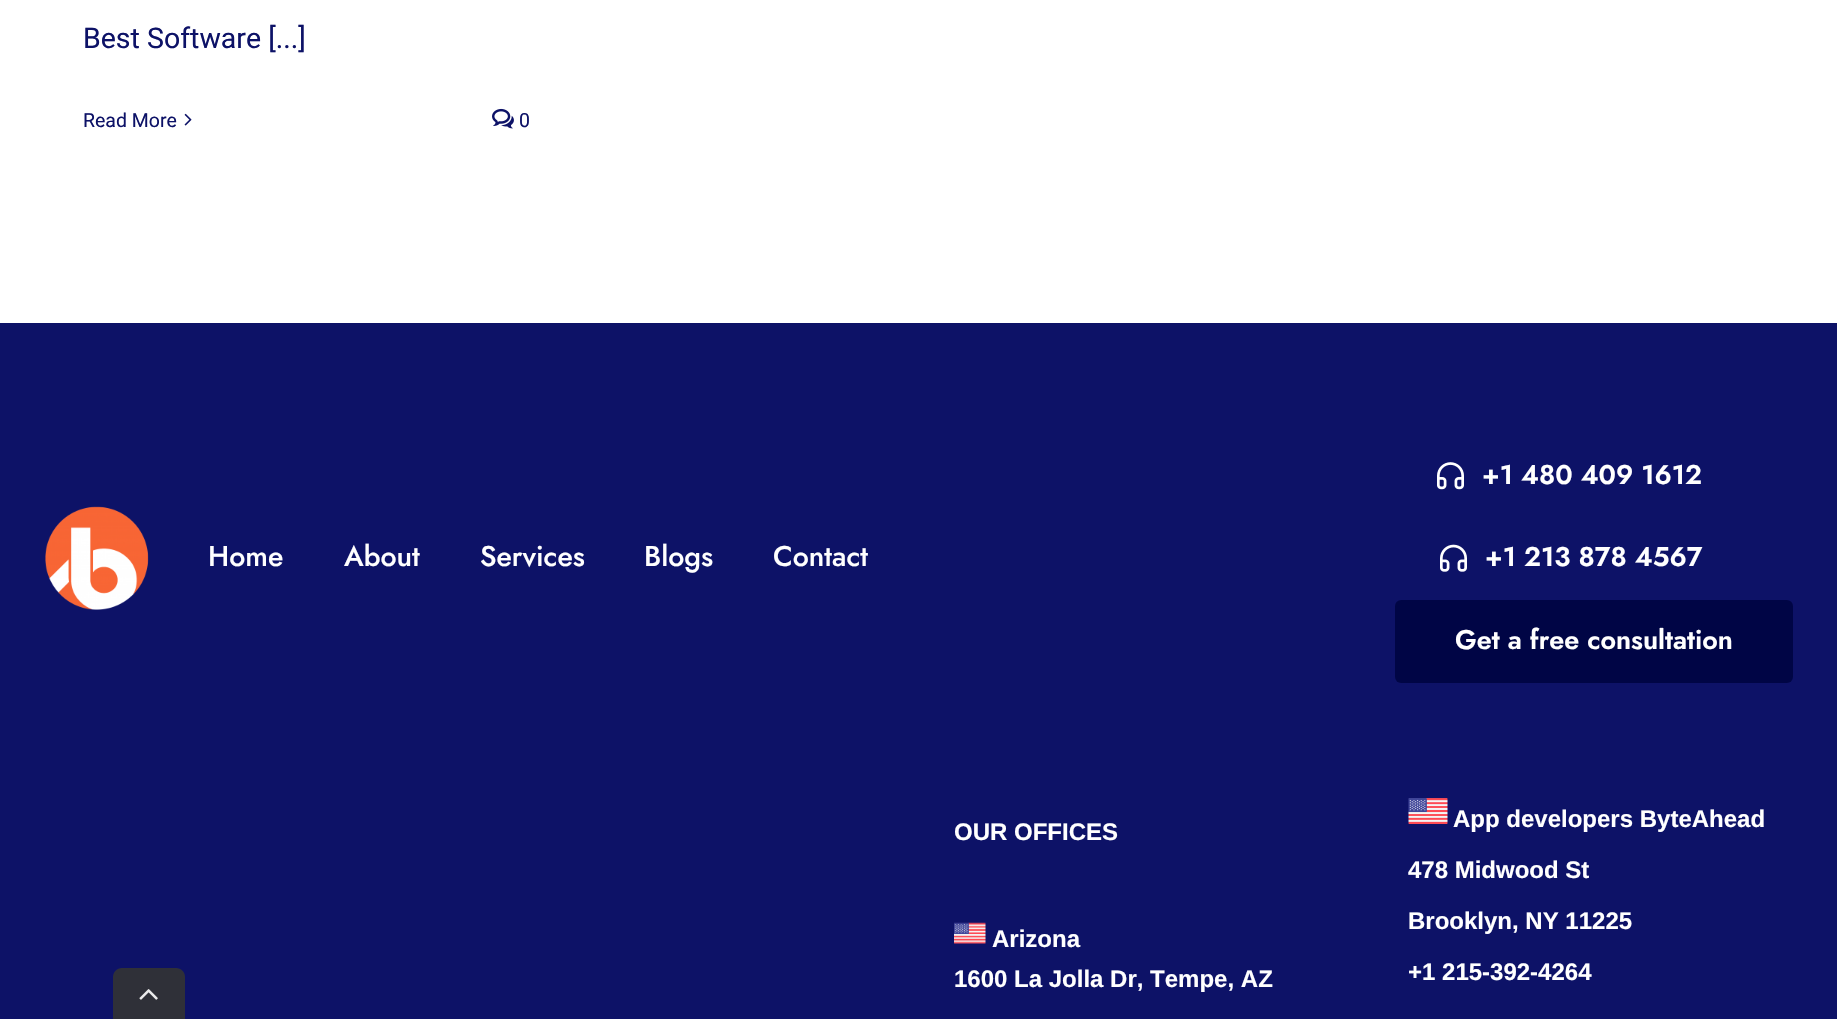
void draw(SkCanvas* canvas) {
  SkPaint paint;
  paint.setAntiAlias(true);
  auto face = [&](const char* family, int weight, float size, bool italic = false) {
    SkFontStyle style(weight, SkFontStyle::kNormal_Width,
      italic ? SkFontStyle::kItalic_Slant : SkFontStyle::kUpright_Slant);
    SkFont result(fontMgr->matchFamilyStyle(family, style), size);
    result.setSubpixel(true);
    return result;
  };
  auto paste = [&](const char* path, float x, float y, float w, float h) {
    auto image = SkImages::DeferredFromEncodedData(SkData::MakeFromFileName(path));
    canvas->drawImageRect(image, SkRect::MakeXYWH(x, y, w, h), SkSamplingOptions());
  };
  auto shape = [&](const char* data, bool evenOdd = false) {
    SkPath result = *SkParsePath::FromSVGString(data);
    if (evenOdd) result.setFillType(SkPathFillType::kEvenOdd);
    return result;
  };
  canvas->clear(0xffffffff);
  paste("img/1.png", 184, 113, 8, 13);
  paste("img/2.png", 492, 108, 22, 21);
  paint.setColor(0xff0d1267);
  canvas->drawRect(SkRect::MakeXYWH(0, 323, 1837, 696), paint);
  paste("img/3.png", 45, 506, 104, 104);
  paste("img/4.png", 1437, 462, 27, 28);
  paste("img/5.png", 1440, 544, 27, 28);
  paint.setColor(0xff000545);
  canvas->drawRoundRect(SkRect::MakeXYWH(1395, 600, 398, 83), 6, 6, paint);
  paste("img/6.png", 954, 922, 32, 22);
  paste("img/7.png", 1408, 798, 40, 26);
  paint.setColor(0xff2f3038);
  canvas->drawPath(shape("M122 968H176C181 968 185 972 185 977V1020H113V977C113 972 117 968 122 968Z"), paint);
  paste("img/8.png", 139, 989, 19, 11);
  auto f0 = face("Roboto", 400, 28.5f);
  paint.setColor(0xff0d1267);
  canvas->drawString("Best Software [...]", 83, 48, f0, paint);
  auto f1 = face("Roboto", 400, 19.5f);
  canvas->drawString("Read More", 83, 127, f1, paint);
  canvas->drawString("0", 519, 127, f1, paint);
  auto f2 = face("Jost", 500, 28.5f);
  paint.setColor(0xffffffff);
  {
    const struct { const char* s; float x, y; } items[] = {
      {"Home", 208, 566},
      {"About", 344, 566},
      {"Services", 480, 566},
      {"Blogs", 644, 566},
      {"Contact", 773, 566},
    };
    for (auto [s, x, y] : items) {
      canvas->drawString(s, x, y, f2, paint);
    }
  }
  auto f3 = face("Jost", 600, 27);
  {
    const struct { const char* s; float x, y; } items[] = {
      {"+1 480 409 1612", 1482, 484},
      {"+1 213 878 4567", 1485, 566},
      {"Get a free consultation", 1455, 649},
    };
    for (auto [s, x, y] : items) {
      canvas->drawString(s, x, y, f3, paint);
    }
  }
  auto f4 = face("Liberation Sans", 700, 24);
  {
    const struct { const char* s; float x, y; } items[] = {
      {"OUR OFFICES", 954, 840},
      {"Arizona", 992, 947},
      {"1600 La Jolla Dr, Tempe, AZ", 954, 987},
      {"App developers ByteAhead", 1453, 827},
      {"478 Midwood St", 1408, 878},
      {"Brooklyn, NY 11225", 1408, 929},
      {"+1 215-392-4264", 1408, 980},
    };
    for (auto [s, x, y] : items) {
      canvas->drawString(s, x, y, f4, paint);
    }
  }
}
